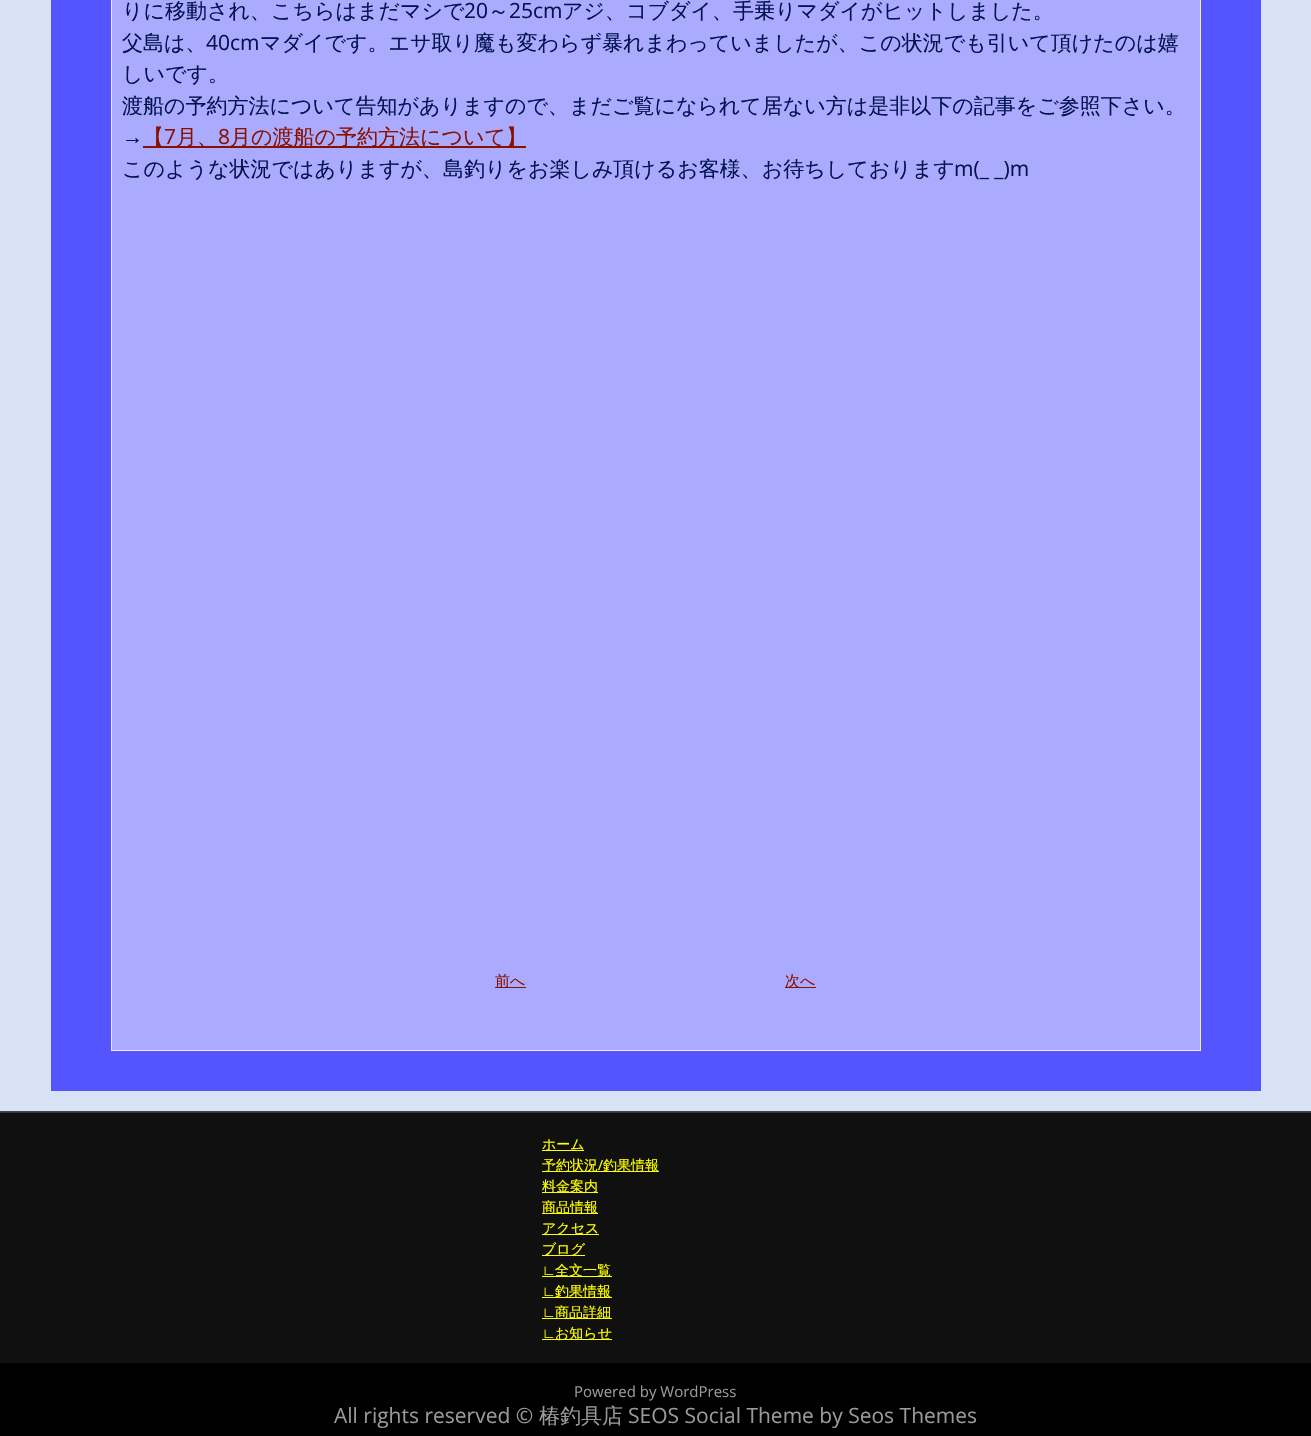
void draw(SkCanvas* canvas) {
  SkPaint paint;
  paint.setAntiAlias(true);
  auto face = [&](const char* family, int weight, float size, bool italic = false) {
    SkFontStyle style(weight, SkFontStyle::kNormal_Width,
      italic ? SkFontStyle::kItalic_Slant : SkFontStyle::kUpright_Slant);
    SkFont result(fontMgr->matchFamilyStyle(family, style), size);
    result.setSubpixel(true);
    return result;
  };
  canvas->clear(0xffd7e3f4);
  paint.setColor(0xff5555ff);
  canvas->drawRect(SkRect::MakeXYWH(51, 0, 1210, 1091), paint);
  paint.setColor(0xffaaaaff);
  canvas->drawRect(SkRect::MakeXYWH(111.5f, -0.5f, 1089, 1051), paint);
  paint.setStroke(true);
  paint.setStrokeWidth(1);
  paint.setColor(0xffeeeeee);
  canvas->drawRect(SkRect::MakeXYWH(111.5f, -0.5f, 1089, 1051), paint);
  paint.setStroke(false);
  {
    const struct { float x, y, w, h; SkColor color; } items[] = {
      {143, 146, 383, 2, 0xff881100},
      {495, 987, 31, 1, 0xff881100},
      {785, 987, 31, 1, 0xff881100},
      {0, 1113, 1311, 250, 0xff101010},
      {0, 1111, 1311, 1, 0xff444444},
      {0, 1112, 1311, 1, 0xff383838},
      {542, 1150, 42, 1, 0xffffff00},
      {542, 1171, 117, 1, 0xffffff00},
      {542, 1192, 56, 1, 0xffffff00},
      {542, 1213, 56, 1, 0xffffff00},
      {542, 1234, 57, 1, 0xffffff00},
      {542, 1255, 43, 1, 0xffffff00},
      {542, 1276, 70, 1, 0xffffff00},
      {542, 1297, 70, 1, 0xffffff00},
      {542, 1318, 70, 1, 0xffffff00},
      {542, 1339, 70, 1, 0xffffff00},
      {0, 1363, 1311, 73, 0xff000000},
    };
    for (auto [x, y, w, h, color] : items) {
      paint.setColor(color);
      canvas->drawRect(SkRect::MakeXYWH(x, y, w, h), paint);
    }
  }
  auto f0 = face("WenQuanYi Zen Hei", 500, 21);
  paint.setColor(0xff04134e);
  canvas->drawString("りに移動され、こちらはまだマシで", 122, 18, f0, paint);
  auto f1 = face("Open Sans", 400, 21);
  canvas->drawString("20", 464, 18, f1, paint);
  canvas->drawString("～", 488, 18, f0, paint);
  canvas->drawString("25cm", 509, 18, f1, paint);
  canvas->drawString("アジ、コブダイ、手乗りマダイがヒットしました。", 562, 18, f0, paint);
  canvas->drawString("父島は、", 122, 50, f0, paint);
  canvas->drawString("40cm", 206, 50, f1, paint);
  {
    const struct { const char* s; float x, y; } items[] = {
      {"マダイです。エサ取り魔も変わらず暴れまわっていましたが、この状況でも引いて頂けたのは嬉", 260, 50},
      {"しいです。", 122, 81},
      {"渡船の予約方法について告知がありますので、まだご覧になられて居ない方は是非以下の記事をご参照下さい。", 122, 113},
    };
    for (auto [s, x, y] : items) {
      canvas->drawString(s, x, y, f0, paint);
    }
  }
  auto f2 = face("Liberation Sans", 400, 21);
  canvas->drawString("→", 122, 144, f2, paint);
  paint.setColor(0xff881100);
  canvas->drawString("【", 143, 144, f0, paint);
  canvas->drawString("7", 164, 144, f1, paint);
  canvas->drawString("月、", 176, 144, f0, paint);
  canvas->drawString("8", 218, 144, f1, paint);
  canvas->drawString("月の渡船の予約方法について】", 230, 144, f0, paint);
  paint.setColor(0xff04134e);
  canvas->drawString("このような状況ではありますが、島釣りをお楽しみ頂けるお客様、お待ちしております", 122, 176, f0, paint);
  canvas->drawString("m(_ _)m", 954, 176, f1, paint);
  auto f3 = face("WenQuanYi Zen Hei", 500, 15);
  paint.setColor(0xff881100);
  canvas->drawString("前へ", 495, 986, f3, paint);
  canvas->drawString("次へ", 785, 986, f3, paint);
  auto f4 = face("WenQuanYi Zen Hei", 500, 14);
  paint.setColor(0xffffff00);
  canvas->drawString("ホーム", 542, 1149, f4, paint);
  canvas->drawString("予約状況", 542, 1170, f4, paint);
  auto f5 = face("Open Sans", 400, 14);
  canvas->drawString("/", 598, 1170, f5, paint);
  {
    const struct { const char* s; float x, y; } items[] = {
      {"釣果情報", 603, 1170},
      {"料金案内", 542, 1191},
      {"商品情報", 542, 1212},
      {"アクセス", 542, 1233},
      {"ブログ", 542, 1254},
    };
    for (auto [s, x, y] : items) {
      canvas->drawString(s, x, y, f4, paint);
    }
  }
  auto f6 = face("Liberation Sans", 400, 14);
  canvas->drawString("∟", 542, 1275, f6, paint);
  canvas->drawString("全文一覧", 555, 1275, f4, paint);
  canvas->drawString("∟", 542, 1296, f6, paint);
  canvas->drawString("釣果情報", 555, 1296, f4, paint);
  canvas->drawString("∟", 542, 1317, f6, paint);
  canvas->drawString("商品詳細", 555, 1317, f4, paint);
  canvas->drawString("∟", 542, 1338, f6, paint);
  canvas->drawString("お知らせ", 555, 1338, f4, paint);
  auto f7 = face("Open Sans", 400, 15);
  paint.setColor(0xff999999);
  canvas->drawString("Powered by WordPress", 574, 1397, f7, paint);
  canvas->drawString("All rights reserved ©", 334, 1423, f1, paint);
  canvas->drawString("椿釣具店", 539, 1423, f0, paint);
  canvas->drawString("SEOS Social Theme by Seos Themes", 628, 1423, f1, paint);
}
